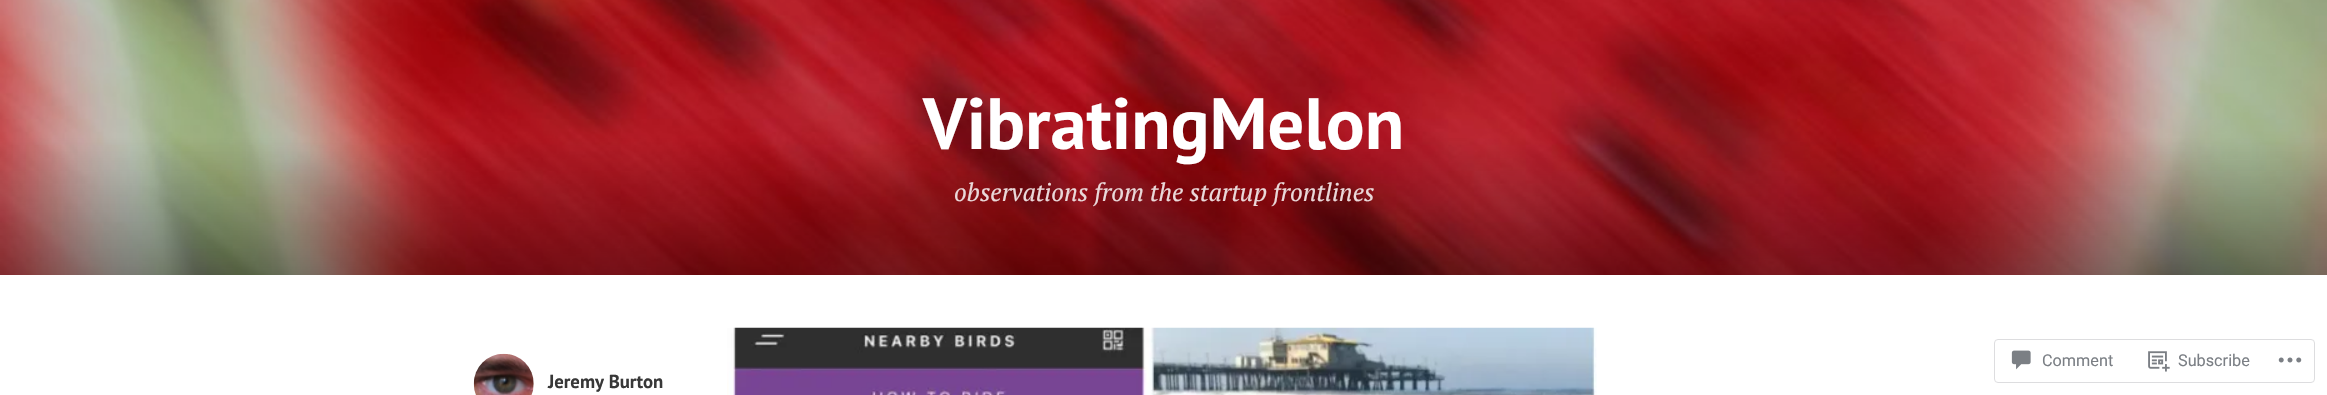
void draw(SkCanvas* canvas) {
  SkPaint paint;
  paint.setAntiAlias(true);
  auto face = [&](const char* family, int weight, float size, bool italic = false) {
    SkFontStyle style(weight, SkFontStyle::kNormal_Width,
      italic ? SkFontStyle::kItalic_Slant : SkFontStyle::kUpright_Slant);
    SkFont result(fontMgr->matchFamilyStyle(family, style), size);
    result.setSubpixel(true);
    return result;
  };
  auto paste = [&](const char* path, float x, float y, float w, float h) {
    auto image = SkImages::DeferredFromEncodedData(SkData::MakeFromFileName(path));
    canvas->drawImageRect(image, SkRect::MakeXYWH(x, y, w, h), SkSamplingOptions());
  };
  canvas->clear(0xffffffff);
  paste("img/1.png", 0, 0, 2327, 275);
  paste("img/2.png", 473, 353, 61, 42);
  paste("img/3.png", 727, 327, 870, 68);
  paint.setStroke(true);
  paint.setStrokeWidth(1);
  paint.setColor(0xffdddddf);
  canvas->drawRoundRect(SkRect::MakeXYWH(1994.5f, 339.5f, 320, 43), 3.5f, 3.5f, paint);
  paste("img/4.png", 2011, 350, 20, 20);
  paste("img/5.png", 2148, 351, 22, 21);
  paste("img/6.png", 2278, 357, 24, 6);
  auto f0 = face("PT Sans", 700, 72.5f);
  paint.setStroke(false);
  paint.setColor(0xffffffff);
  canvas->drawString("VibratingMelon", 923, 149, f0, paint);
  auto f1 = face("PT Serif", 400, 25, true);
  paint.setColor(0xffead8d9);
  canvas->drawString("observations from the startup frontlines", 954, 201, f1, paint);
  auto f2 = face("PT Sans", 700, 18.75f);
  paint.setColor(0xff383838);
  canvas->drawString("Jeremy Burton", 548, 388, f2, paint);
  auto f3 = face("Roboto", 400, 16.25f);
  paint.setColor(0xff7b7f85);
  canvas->drawString("Comment", 2042, 366, f3, paint);
  canvas->drawString("Subscribe", 2178, 366, f3, paint);
}
